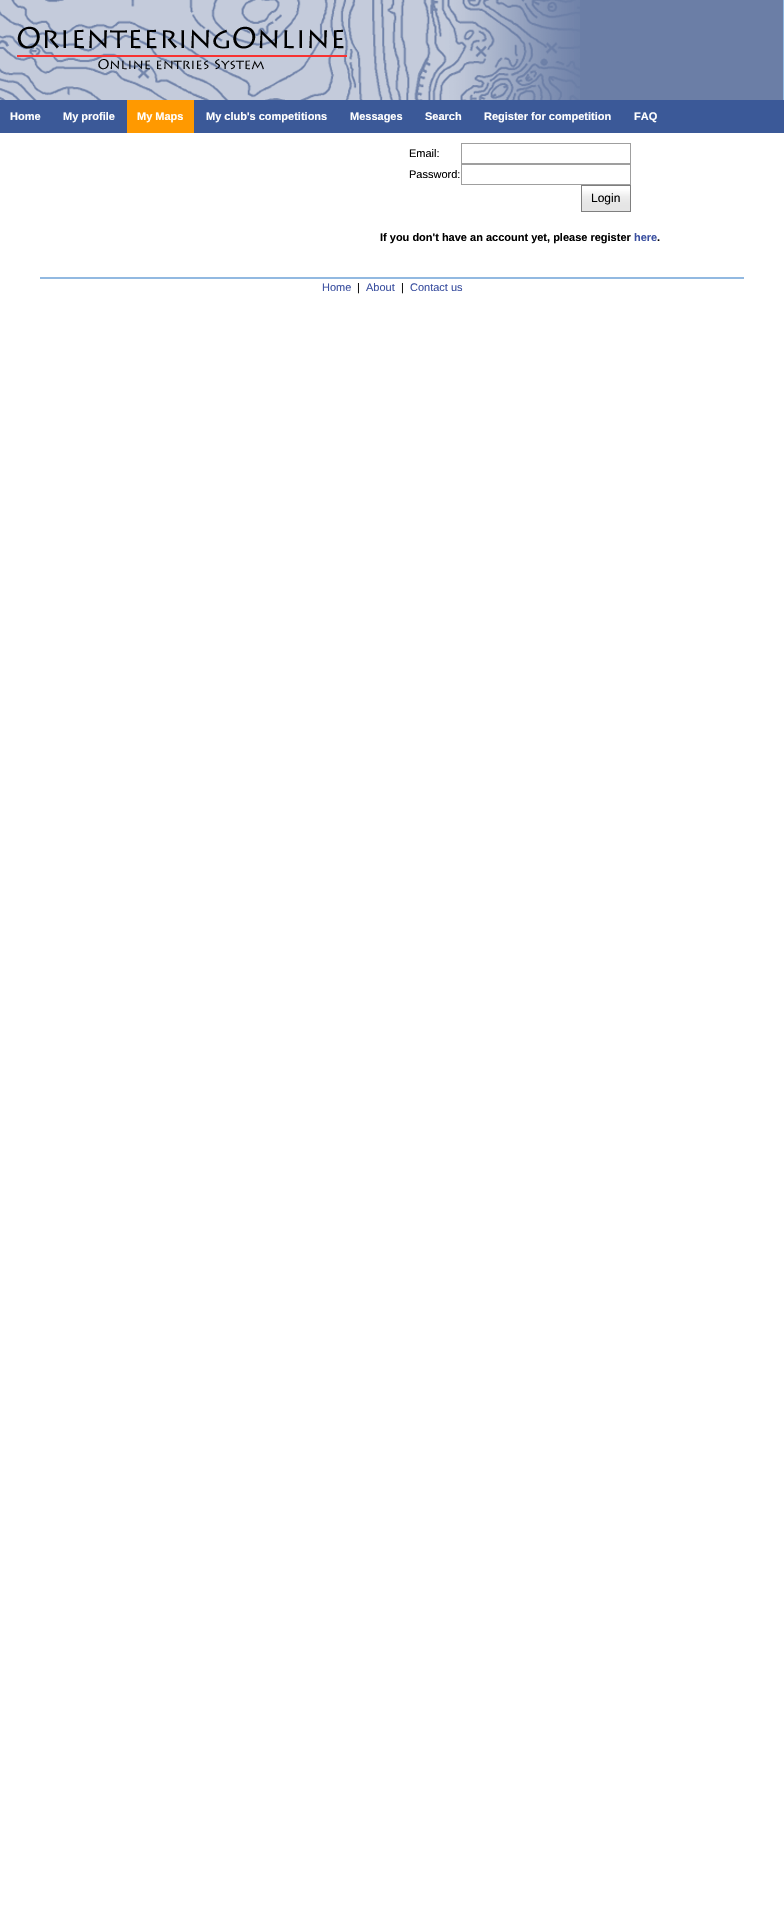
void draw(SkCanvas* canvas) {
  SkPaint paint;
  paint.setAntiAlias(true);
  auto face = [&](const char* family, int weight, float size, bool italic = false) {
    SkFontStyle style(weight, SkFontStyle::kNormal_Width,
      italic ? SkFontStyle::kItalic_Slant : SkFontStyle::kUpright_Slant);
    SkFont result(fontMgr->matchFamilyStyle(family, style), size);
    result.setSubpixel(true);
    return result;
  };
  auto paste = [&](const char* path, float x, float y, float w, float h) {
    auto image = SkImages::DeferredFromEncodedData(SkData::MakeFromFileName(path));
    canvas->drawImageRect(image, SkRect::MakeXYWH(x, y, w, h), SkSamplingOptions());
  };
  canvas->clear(0xffffffff);
  paint.setColor(0xff6b7ea6);
  canvas->drawRect(SkRect::MakeXYWH(580, 0, 203, 100), paint);
  paint.setColor(0xff92b9e1);
  canvas->drawRect(SkRect::MakeXYWH(783, 0, 1, 100), paint);
  paste("img/1.png", 0, 0, 580, 100);
  paint.setColor(0xff3b5998);
  canvas->drawRect(SkRect::MakeXYWH(0, 100, 784, 33), paint);
  paint.setColor(0xffff9900);
  canvas->drawRect(SkRect::MakeXYWH(127, 100, 67, 33), paint);
  paint.setStroke(true);
  paint.setStrokeWidth(1);
  paint.setColor(0xff9f9f9f);
  canvas->drawRect(SkRect::MakeXYWH(461.5f, 143.5f, 169, 20), paint);
  canvas->drawRect(SkRect::MakeXYWH(461.5f, 164.5f, 169, 20), paint);
  paste("img/2.png", 582, 186, 48, 25);
  paint.setColor(0xff7f7f7f);
  canvas->drawRect(SkRect::MakeXYWH(581.5f, 185.5f, 49, 26), paint);
  paint.setStroke(false);
  paint.setColor(0xff92b9e1);
  canvas->drawRect(SkRect::MakeXYWH(40, 277, 704, 2), paint);
  auto f0 = face("Liberation Sans", 700, 11);
  paint.setColor(0xffffffff);
  {
    const struct { const char* s; float x, y; } items[] = {
      {"Home", 10, 120},
      {"My profile", 63, 120},
      {"My Maps", 137, 120},
      {"My club's competitions", 206, 120},
      {"Messages", 350, 120},
      {"Search", 425, 120},
      {"Register for competition", 484, 120},
      {"FAQ", 634, 120},
    };
    for (auto [s, x, y] : items) {
      canvas->drawString(s, x, y, f0, paint);
    }
  }
  auto f1 = face("Liberation Sans", 400, 11);
  paint.setColor(0xff000000);
  canvas->drawString("Email:", 409, 157, f1, paint);
  canvas->drawString("Password:", 409, 178, f1, paint);
  auto f2 = face("Liberation Sans", 400, 12);
  canvas->drawString("Login", 591, 202, f2, paint);
  canvas->drawString("If you don't have an account yet, please register", 380, 241, f0, paint);
  paint.setColor(0xff3b50a0);
  canvas->drawString("here", 634, 241, f0, paint);
  paint.setColor(0xff000000);
  canvas->drawString(".", 657, 241, f0, paint);
  paint.setColor(0xff3b50a0);
  canvas->drawString("Home", 322, 291, f1, paint);
  paint.setColor(0xff000000);
  canvas->drawString("|", 357, 291, f1, paint);
  paint.setColor(0xff3b50a0);
  canvas->drawString("About", 366, 291, f1, paint);
  paint.setColor(0xff000000);
  canvas->drawString("|", 401, 291, f1, paint);
  paint.setColor(0xff3b50a0);
  canvas->drawString("Contact us", 410, 291, f1, paint);
}
